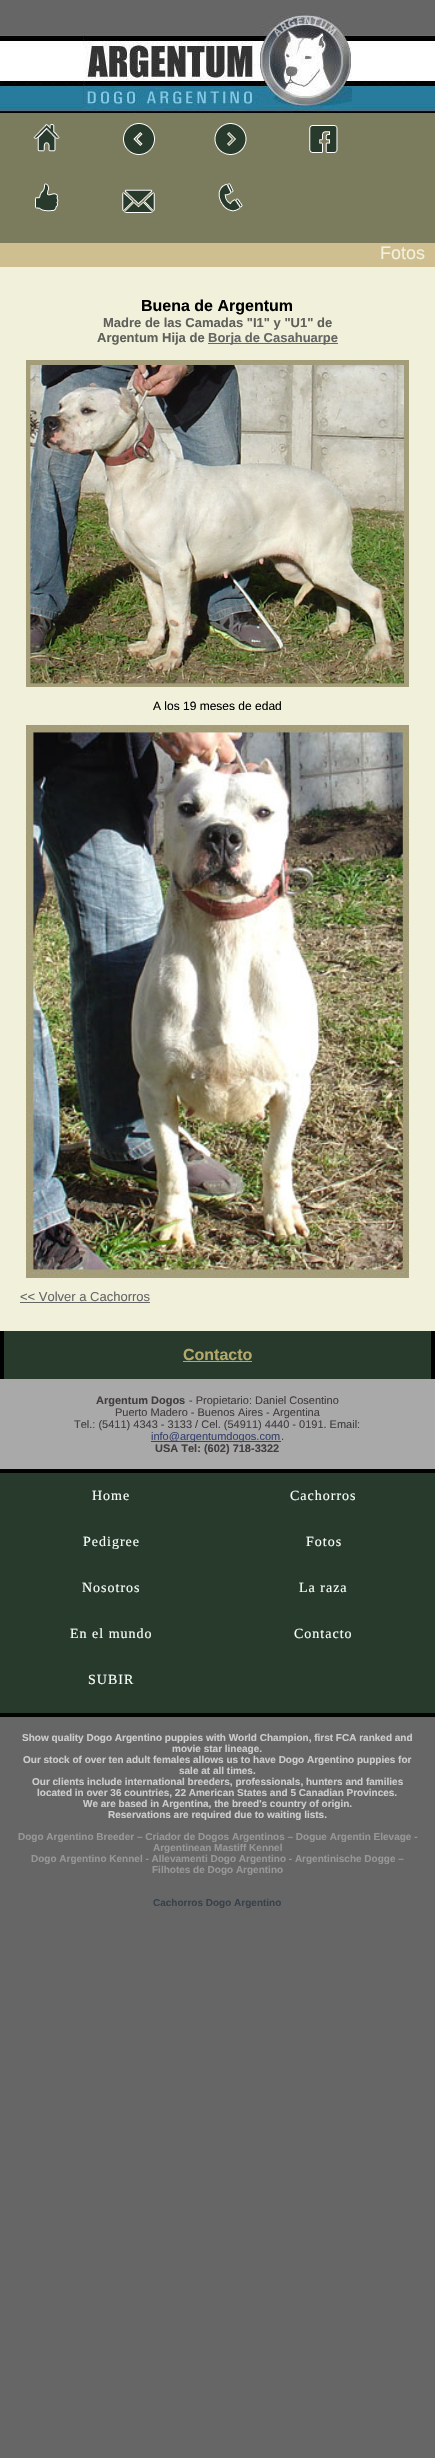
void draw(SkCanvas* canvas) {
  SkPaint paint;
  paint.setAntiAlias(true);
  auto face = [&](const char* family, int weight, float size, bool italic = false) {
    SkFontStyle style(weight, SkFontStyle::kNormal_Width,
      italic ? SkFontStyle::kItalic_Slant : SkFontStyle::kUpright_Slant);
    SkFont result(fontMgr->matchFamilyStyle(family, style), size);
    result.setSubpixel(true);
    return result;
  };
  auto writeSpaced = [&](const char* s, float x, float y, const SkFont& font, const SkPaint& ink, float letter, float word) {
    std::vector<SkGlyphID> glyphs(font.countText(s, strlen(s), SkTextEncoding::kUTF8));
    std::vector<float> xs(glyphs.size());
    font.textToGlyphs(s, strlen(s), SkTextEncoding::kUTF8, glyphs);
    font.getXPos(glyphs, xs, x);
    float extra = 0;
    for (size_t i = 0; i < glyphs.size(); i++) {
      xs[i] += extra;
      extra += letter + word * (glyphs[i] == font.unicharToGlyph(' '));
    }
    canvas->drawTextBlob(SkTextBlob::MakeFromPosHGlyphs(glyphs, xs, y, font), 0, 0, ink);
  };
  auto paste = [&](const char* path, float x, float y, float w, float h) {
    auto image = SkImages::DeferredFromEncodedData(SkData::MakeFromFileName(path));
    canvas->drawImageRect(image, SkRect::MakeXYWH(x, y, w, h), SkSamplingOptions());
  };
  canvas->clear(0xff666666);
  paste("img/1.png", 0, 35, 435, 78);
  paste("img/2.png", 83, 11, 269, 102);
  paint.setColor(0xfff0f0db);
  canvas->drawRect(SkRect::MakeXYWH(0, 267, 435, 1064), paint);
  paint.setColor(0xff7b7c5d);
  canvas->drawRect(SkRect::MakeXYWH(0, 113, 435, 130), paint);
  paste("img/3.png", 33, 124, 27, 28);
  paste("img/4.png", 123, 123, 32, 32);
  paste("img/5.png", 214, 123, 33, 32);
  paste("img/6.png", 309, 125, 29, 28);
  paste("img/7.png", 35, 183, 24, 29);
  paste("img/8.png", 122, 189, 33, 24);
  paste("img/9.png", 218, 183, 25, 29);
  paint.setColor(0xffcfbe8f);
  canvas->drawRect(SkRect::MakeXYWH(0, 243, 435, 24), paint);
  paint.setColor(0xff666666);
  canvas->drawRect(SkRect::MakeXYWH(208, 343, 130, 1), paint);
  paste("img/10.png", 26, 360, 383, 327);
  paste("img/11.png", 26, 725, 383, 553);
  {
    const struct { float x, y, w, h; SkColor color; } items[] = {
      {20, 1302, 130, 1, 0xff666666},
      {4, 1331, 427, 48, 0xff283a2c},
      {431, 1331, 4, 48, 0xff000000},
      {0, 1331, 4, 48, 0xff000000},
      {183, 1361, 69, 1, 0xffb3a96b},
      {0, 1379, 435, 90, 0xffa9a9a9},
      {0, 1469, 435, 4, 0xff000300},
      {151, 1441, 130, 1, 0xff38426d},
      {0, 1473, 435, 240, 0xff283a2c},
      {0, 1713, 435, 4, 0xff000300},
    };
    for (auto [x, y, w, h, color] : items) {
      paint.setColor(color);
      canvas->drawRect(SkRect::MakeXYWH(x, y, w, h), paint);
    }
  }
  auto f0 = face("Liberation Sans", 400, 18);
  paint.setColor(0xfff0f0db);
  canvas->drawString("Fotos", 380, 259, f0, paint);
  auto f1 = face("Liberation Sans", 700, 16);
  paint.setColor(0xff000000);
  canvas->drawString("Buena de Argentum", 141, 311, f1, paint);
  auto f2 = face("Liberation Sans", 700, 13);
  paint.setColor(0xff60605b);
  canvas->drawString("Madre de las Camadas \"I1\" y \"U1\" de", 103, 327, f2, paint);
  canvas->drawString("Argentum Hija de", 97, 342, f2, paint);
  paint.setColor(0xff666666);
  canvas->drawString("Borja de Casahuarpe", 208, 342, f2, paint);
  auto f3 = face("Liberation Sans", 400, 12);
  paint.setColor(0xff000000);
  canvas->drawString("A los 19 meses de edad", 153, 710, f3, paint);
  auto f4 = face("Liberation Sans", 400, 13);
  paint.setColor(0xff666666);
  canvas->drawString("<< Volver a Cachorros", 20, 1301, f4, paint);
  paint.setColor(0xffb3a96b);
  canvas->drawString("Contacto", 183, 1360, f1, paint);
  auto f5 = face("Liberation Sans", 700, 11);
  paint.setColor(0xff423d3f);
  canvas->drawString("Argentum Dogos", 96, 1404, f5, paint);
  auto f6 = face("Liberation Sans", 400, 11);
  {
    const struct { const char* s; float x, y; } items[] = {
      {"- Propietario: Daniel Cosentino", 189, 1404},
      {"Puerto Madero - Buenos Aires - Argentina", 115, 1416},
      {"Tel.: (5411) 4343 - 3133 / Cel. (54911) 4440 - 0191. Email:", 74, 1428},
    };
    for (auto [s, x, y] : items) {
      canvas->drawString(s, x, y, f6, paint);
    }
  }
  paint.setColor(0xff38426d);
  canvas->drawString("info@argentumdogos.com", 151, 1440, f6, paint);
  paint.setColor(0xff423d3f);
  canvas->drawString(".", 281, 1440, f6, paint);
  canvas->drawString("USA Tel: (602) 718-3322", 155, 1452, f5, paint);
  auto f7 = face("Liberation Serif", 400, 14);
  paint.setColor(0xfff9fffa);
  {
    const struct { const char* s; float x, y; } items[] = {
      {"Home", 92, 1500},
      {"Cachorros", 290, 1500},
      {"Pedigree", 83, 1546},
      {"Fotos", 306, 1546},
      {"Nosotros", 82, 1592},
      {"La raza", 299, 1592},
      {"En el mundo", 70, 1638},
      {"Contacto", 294, 1638},
      {"SUBIR", 88, 1684},
    };
    for (auto [s, x, y] : items) {
      writeSpaced(s, x, y, f7, paint, 1, 0);
    }
  }
  auto f8 = face("Liberation Sans", 700, 10);
  paint.setColor(0xffcccccc);
  {
    const struct { const char* s; float x, y; } items[] = {
      {"Show quality Dogo Argentino puppies with World Champion, first FCA ranked and", 22, 1741},
      {"movie star lineage.", 172, 1752},
      {"Our stock of over ten adult females allows us to have Dogo Argentino puppies for", 23, 1763},
      {"sale at all times.", 179, 1774},
      {"Our clients include international breeders, professionals, hunters and families", 32, 1785},
      {"located in over 36 countries, 22 American States and 5 Canadian Provinces.", 37, 1796},
      {"We are based in Argentina, the breed's country of origin.", 83, 1807},
      {"Reservations are required due to waiting lists.", 108, 1818},
    };
    for (auto [s, x, y] : items) {
      canvas->drawString(s, x, y, f8, paint);
    }
  }
  paint.setColor(0xff979797);
  {
    const struct { const char* s; float x, y; } items[] = {
      {"Dogo Argentino Breeder – Criador de Dogos Argentinos – Dogue Argentin Elevage -", 18, 1840},
      {"Argentinean Mastiff Kennel", 153, 1851},
      {"Dogo Argentino Kennel - Allevamenti Dogo Argentino - Argentinische Dogge –", 31, 1862},
      {"Filhotes de Dogo Argentino", 152, 1873},
    };
    for (auto [s, x, y] : items) {
      canvas->drawString(s, x, y, f8, paint);
    }
  }
  paint.setColor(0xff37414b);
  canvas->drawString("Cachorros Dogo Argentino", 153, 1906, f8, paint);
}
